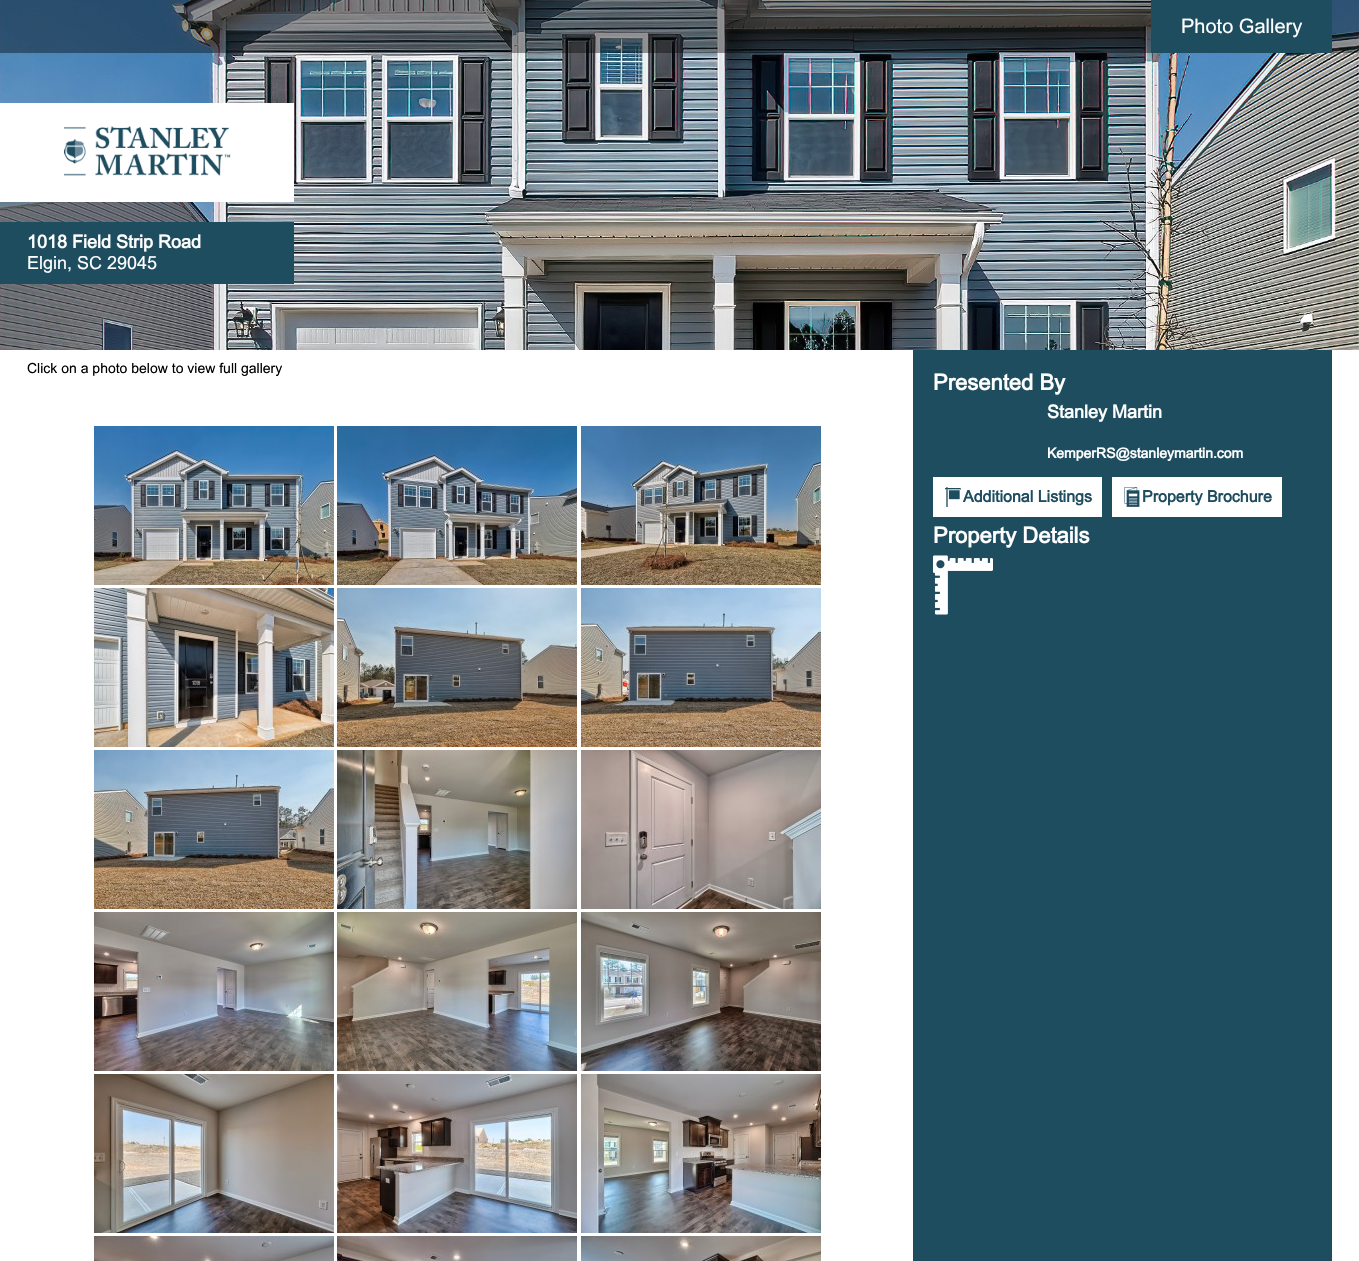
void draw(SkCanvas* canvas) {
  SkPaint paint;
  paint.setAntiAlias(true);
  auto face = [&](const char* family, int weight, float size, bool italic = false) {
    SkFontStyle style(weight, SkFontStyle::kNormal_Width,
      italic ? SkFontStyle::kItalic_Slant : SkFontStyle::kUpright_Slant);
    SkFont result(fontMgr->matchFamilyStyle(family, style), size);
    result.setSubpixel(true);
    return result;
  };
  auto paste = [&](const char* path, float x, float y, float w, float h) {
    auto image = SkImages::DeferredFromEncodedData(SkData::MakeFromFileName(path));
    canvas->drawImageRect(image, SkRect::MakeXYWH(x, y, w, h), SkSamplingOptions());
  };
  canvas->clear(0xffffffff);
  paste("img/1.png", 0, 0, 1359, 350);
  {
    const struct { float x, y, w, h; SkColor color; } items[] = {
      {0, 0, 1359, 53, 0x66000000},
      {1151, 0, 181, 53, 0xff1e4d60},
      {0, 103, 294, 99, 0xffffffff},
    };
    for (auto [x, y, w, h, color] : items) {
      paint.setColor(color);
      canvas->drawRect(SkRect::MakeXYWH(x, y, w, h), paint);
    }
  }
  paste("img/2.png", 64, 126, 167, 50);
  paint.setColor(0xff1e4d60);
  canvas->drawRect(SkRect::MakeXYWH(0, 222, 294, 62), paint);
  paste("img/3.png", 94, 426, 240, 159);
  paste("img/4.png", 337, 426, 240, 159);
  paste("img/5.png", 581, 426, 240, 159);
  paste("img/6.png", 94, 588, 240, 159);
  paste("img/7.png", 337, 588, 240, 159);
  paste("img/8.png", 581, 588, 240, 159);
  paste("img/9.png", 94, 750, 240, 159);
  paste("img/10.png", 337, 750, 240, 159);
  paste("img/11.png", 581, 750, 240, 159);
  paste("img/12.png", 94, 912, 240, 159);
  paste("img/13.png", 337, 912, 240, 159);
  paste("img/14.png", 581, 912, 240, 159);
  paste("img/15.png", 94, 1074, 240, 159);
  paste("img/16.png", 337, 1074, 240, 159);
  paste("img/17.png", 581, 1074, 240, 159);
  paste("img/18.png", 94, 1236, 240, 25);
  paste("img/19.png", 337, 1236, 240, 25);
  paste("img/20.png", 581, 1236, 240, 25);
  canvas->drawRect(SkRect::MakeXYWH(913, 350, 419, 911), paint);
  paint.setColor(0xffffffff);
  canvas->drawRect(SkRect::MakeXYWH(933, 477, 169, 40), paint);
  paste("img/21.png", 945, 487, 16, 20);
  canvas->drawRect(SkRect::MakeXYWH(1112, 477, 170, 40), paint);
  paste("img/22.png", 1124, 487, 16, 20);
  paste("img/23.png", 933, 555, 60, 60);
  auto f0 = face("Arial", 400, 20);
  canvas->drawString("Photo Gallery", 1181, 33, f0, paint);
  auto f1 = face("Arial", 700, 18);
  canvas->drawString("1018 Field Strip Road", 27, 248, f1, paint);
  auto f2 = face("Arial", 400, 18);
  canvas->drawString("Elgin, SC 29045", 27, 269, f2, paint);
  auto f3 = face("Arial", 400, 14);
  paint.setColor(0xff000000);
  canvas->drawString("Click on a photo below to view full gallery", 27, 373, f3, paint);
  auto f4 = face("Arial", 700, 22);
  paint.setColor(0xffffffff);
  canvas->drawString("Presented By", 933, 390, f4, paint);
  canvas->drawString("Stanley Martin", 1047, 418, f1, paint);
  auto f5 = face("Arial", 700, 14);
  canvas->drawString("KemperRS@stanleymartin.com", 1047, 458, f5, paint);
  auto f6 = face("Arial", 700, 16);
  paint.setColor(0xff1e4d60);
  canvas->drawString("Additional Listings", 963, 502, f6, paint);
  canvas->drawString("Property Brochure", 1142, 502, f6, paint);
  paint.setColor(0xffffffff);
  canvas->drawString("Property Details", 933, 543, f4, paint);
}
